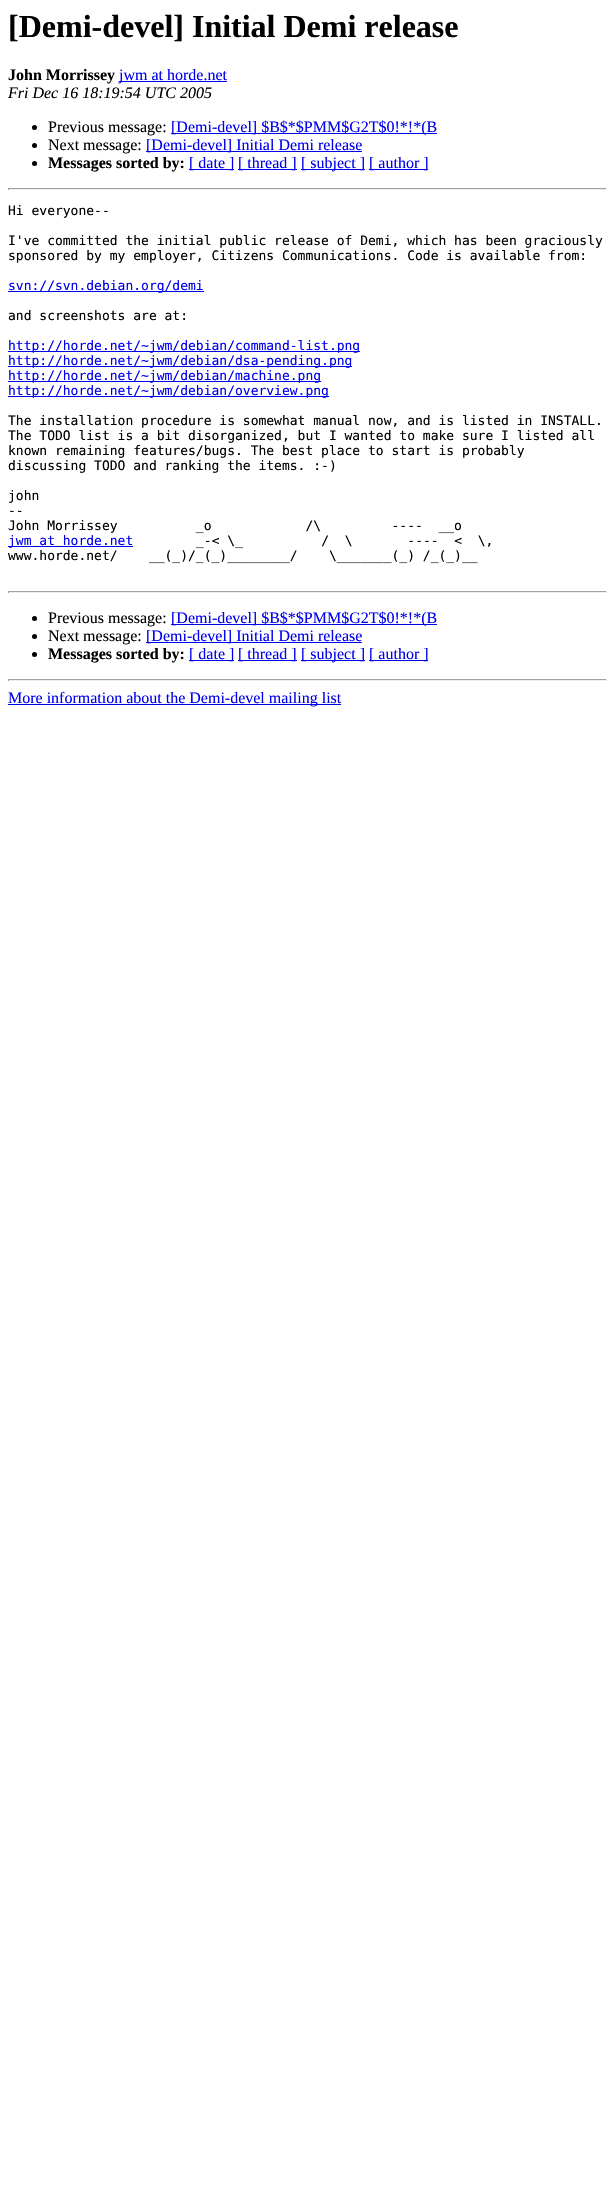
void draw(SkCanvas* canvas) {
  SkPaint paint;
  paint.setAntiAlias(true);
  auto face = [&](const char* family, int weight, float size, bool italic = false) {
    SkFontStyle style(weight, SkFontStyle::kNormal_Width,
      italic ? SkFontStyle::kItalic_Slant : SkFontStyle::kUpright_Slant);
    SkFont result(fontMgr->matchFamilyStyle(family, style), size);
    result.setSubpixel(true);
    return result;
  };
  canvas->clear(0xffffffff);
  paint.setColor(0xff0000ee);
  canvas->drawRect(SkRect::MakeXYWH(119, 81, 108, 1), paint);
  paint.setColor(0xff000000);
  canvas->drawCircle(34.5f, 127.5f, 2.5f, paint);
  paint.setColor(0xff0000ee);
  canvas->drawRect(SkRect::MakeXYWH(171, 133, 266, 1), paint);
  paint.setColor(0xff000000);
  canvas->drawCircle(34.5f, 145.5f, 2.5f, paint);
  paint.setColor(0xff0000ee);
  canvas->drawRect(SkRect::MakeXYWH(146, 151, 216, 1), paint);
  paint.setColor(0xff000000);
  canvas->drawCircle(34.5f, 163.5f, 2.5f, paint);
  {
    const struct { float x, y, w, h; SkColor color; } items[] = {
      {189, 169, 45, 1, 0xff0000ee},
      {238, 169, 59, 1, 0xff0000ee},
      {301, 169, 64, 1, 0xff0000ee},
      {369, 169, 59, 1, 0xff0000ee},
      {8, 188, 599, 1, 0xff9f9f9f},
      {606, 188, 1, 2, 0xffeeeeee},
      {8, 189, 599, 1, 0xffeeeeee},
      {8, 188, 1, 2, 0xff9f9f9f},
      {8, 291, 196, 1, 0xff0000ee},
      {8, 351, 352, 1, 0xff0000ee},
      {8, 366, 344, 1, 0xff0000ee},
      {8, 381, 313, 1, 0xff0000ee},
      {8, 396, 321, 1, 0xff0000ee},
      {8, 546, 125, 1, 0xff0000ee},
      {8, 591, 599, 1, 0xff9f9f9f},
      {606, 591, 1, 2, 0xffeeeeee},
      {8, 592, 599, 1, 0xffeeeeee},
      {8, 591, 1, 2, 0xff9f9f9f},
    };
    for (auto [x, y, w, h, color] : items) {
      paint.setColor(color);
      canvas->drawRect(SkRect::MakeXYWH(x, y, w, h), paint);
    }
  }
  paint.setColor(0xff000000);
  canvas->drawCircle(34.5f, 618.5f, 2.5f, paint);
  paint.setColor(0xff0000ee);
  canvas->drawRect(SkRect::MakeXYWH(171, 624, 266, 1), paint);
  paint.setColor(0xff000000);
  canvas->drawCircle(34.5f, 636.5f, 2.5f, paint);
  paint.setColor(0xff0000ee);
  canvas->drawRect(SkRect::MakeXYWH(146, 642, 216, 1), paint);
  paint.setColor(0xff000000);
  canvas->drawCircle(34.5f, 654.5f, 2.5f, paint);
  {
    const struct { float x, y, w, h; SkColor color; } items[] = {
      {189, 660, 45, 1, 0xff0000ee},
      {238, 660, 59, 1, 0xff0000ee},
      {301, 660, 64, 1, 0xff0000ee},
      {369, 660, 59, 1, 0xff0000ee},
      {8, 679, 599, 1, 0xff9f9f9f},
      {606, 679, 1, 2, 0xffeeeeee},
      {8, 680, 599, 1, 0xffeeeeee},
      {8, 679, 1, 2, 0xff9f9f9f},
      {8, 704, 333, 1, 0xff0000ee},
    };
    for (auto [x, y, w, h, color] : items) {
      paint.setColor(color);
      canvas->drawRect(SkRect::MakeXYWH(x, y, w, h), paint);
    }
  }
  auto f0 = face("Liberation Serif", 700, 32);
  paint.setColor(0xff000000);
  canvas->drawString("[Demi-devel] Initial Demi release", 8, 37, f0, paint);
  auto f1 = face("Liberation Serif", 700, 16);
  canvas->drawString("John Morrissey", 8, 80, f1, paint);
  auto f2 = face("Liberation Serif", 400, 16);
  paint.setColor(0xff0000ee);
  canvas->drawString("jwm at horde.net", 119, 80, f2, paint);
  auto f3 = face("Liberation Serif", 400, 16, true);
  paint.setColor(0xff000000);
  canvas->drawString("Fri Dec 16 18:19:54 UTC 2005", 8, 98, f3, paint);
  canvas->drawString("Previous message:", 48, 132, f2, paint);
  paint.setColor(0xff0000ee);
  canvas->drawString("[Demi-devel] $B$*$PMM$G2T$0!*!*(B", 171, 132, f2, paint);
  paint.setColor(0xff000000);
  canvas->drawString("Next message:", 48, 150, f2, paint);
  paint.setColor(0xff0000ee);
  canvas->drawString("[Demi-devel] Initial Demi release", 146, 150, f2, paint);
  paint.setColor(0xff000000);
  canvas->drawString("Messages sorted by:", 48, 168, f1, paint);
  paint.setColor(0xff0000ee);
  {
    const struct { const char* s; float x, y; } items[] = {
      {"[ date ]", 189, 168},
      {"[ thread ]", 238, 168},
      {"[ subject ]", 301, 168},
      {"[ author ]", 369, 168},
    };
    for (auto [s, x, y] : items) {
      canvas->drawString(s, x, y, f2, paint);
    }
  }
  auto f4 = face("DejaVu Sans Mono", 400, 13);
  paint.setColor(0xff000000);
  {
    const struct { const char* s; float x, y; } items[] = {
      {"Hi everyone--", 8, 215},
      {"I've committed the initial public release of Demi, which has been graciously", 8, 245},
      {"sponsored by my employer, Citizens Communications. Code is available from:", 8, 260},
    };
    for (auto [s, x, y] : items) {
      canvas->drawString(s, x, y, f4, paint);
    }
  }
  paint.setColor(0xff0000ee);
  canvas->drawString("svn://svn.debian.org/demi", 8, 290, f4, paint);
  paint.setColor(0xff000000);
  canvas->drawString("and screenshots are at:", 8, 320, f4, paint);
  paint.setColor(0xff0000ee);
  {
    const struct { const char* s; float x, y; } items[] = {
      {"http://horde.net/~jwm/debian/command-list.png", 8, 350},
      {"http://horde.net/~jwm/debian/dsa-pending.png", 8, 365},
      {"http://horde.net/~jwm/debian/machine.png", 8, 380},
      {"http://horde.net/~jwm/debian/overview.png", 8, 395},
    };
    for (auto [s, x, y] : items) {
      canvas->drawString(s, x, y, f4, paint);
    }
  }
  paint.setColor(0xff000000);
  {
    const struct { const char* s; float x, y; } items[] = {
      {"The installation procedure is somewhat manual now, and is listed in INSTALL.", 8, 425},
      {"The TODO list is a bit disorganized, but I wanted to make sure I listed all", 8, 440},
      {"known remaining features/bugs. The best place to start is probably", 8, 455},
      {"discussing TODO and ranking the items. :-)", 8, 470},
      {"john", 8, 500},
      {"--", 8, 515},
      {"John Morrissey          _o            /\\         ----  __o", 8, 530},
    };
    for (auto [s, x, y] : items) {
      canvas->drawString(s, x, y, f4, paint);
    }
  }
  paint.setColor(0xff0000ee);
  canvas->drawString("jwm at horde.net", 8, 545, f4, paint);
  paint.setColor(0xff000000);
  canvas->drawString("_-< \\_          /  \\       ----  <  \\,", 196, 545, f4, paint);
  canvas->drawString("www.horde.net/    __(_)/_(_)________/    \\_______(_) /_(_)__", 8, 560, f4, paint);
  canvas->drawString("Previous message:", 48, 623, f2, paint);
  paint.setColor(0xff0000ee);
  canvas->drawString("[Demi-devel] $B$*$PMM$G2T$0!*!*(B", 171, 623, f2, paint);
  paint.setColor(0xff000000);
  canvas->drawString("Next message:", 48, 641, f2, paint);
  paint.setColor(0xff0000ee);
  canvas->drawString("[Demi-devel] Initial Demi release", 146, 641, f2, paint);
  paint.setColor(0xff000000);
  canvas->drawString("Messages sorted by:", 48, 659, f1, paint);
  paint.setColor(0xff0000ee);
  {
    const struct { const char* s; float x, y; } items[] = {
      {"[ date ]", 189, 659},
      {"[ thread ]", 238, 659},
      {"[ subject ]", 301, 659},
      {"[ author ]", 369, 659},
      {"More information about the Demi-devel mailing list", 8, 703},
    };
    for (auto [s, x, y] : items) {
      canvas->drawString(s, x, y, f2, paint);
    }
  }
}
